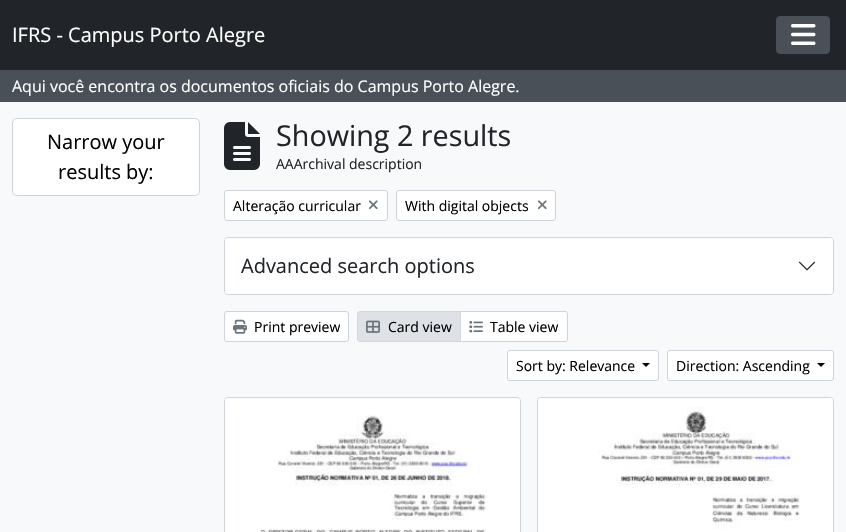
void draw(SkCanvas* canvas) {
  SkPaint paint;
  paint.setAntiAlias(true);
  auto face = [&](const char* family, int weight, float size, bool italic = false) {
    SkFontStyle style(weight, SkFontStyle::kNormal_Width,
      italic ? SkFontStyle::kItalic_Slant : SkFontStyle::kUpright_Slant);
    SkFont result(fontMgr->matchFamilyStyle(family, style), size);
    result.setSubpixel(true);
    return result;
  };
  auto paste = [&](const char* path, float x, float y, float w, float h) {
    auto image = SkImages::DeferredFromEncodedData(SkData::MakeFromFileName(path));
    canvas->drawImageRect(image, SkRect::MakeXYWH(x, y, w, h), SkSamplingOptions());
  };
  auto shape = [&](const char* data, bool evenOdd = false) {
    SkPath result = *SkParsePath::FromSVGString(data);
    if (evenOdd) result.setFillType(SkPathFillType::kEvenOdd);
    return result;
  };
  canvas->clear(0xfff8f9fa);
  paint.setColor(0xff212529);
  canvas->drawRect(SkRect::MakeXYWH(0, 0, 846, 70), paint);
  paint.setColor(0xff495057);
  canvas->drawRoundRect(SkRect::MakeXYWH(776.5f, 16.5f, 53, 37), 3.5f, 3.5f, paint);
  paint.setStroke(true);
  paint.setStrokeWidth(1);
  canvas->drawRoundRect(SkRect::MakeXYWH(776.5f, 16.5f, 53, 37), 3.5f, 3.5f, paint);
  paste("img/1.png", 791, 24, 25, 21);
  paint.setStroke(false);
  canvas->drawRect(SkRect::MakeXYWH(0, 70, 846, 32), paint);
  paint.setColor(0xffffffff);
  canvas->drawRoundRect(SkRect::MakeXYWH(12.5f, 118.5f, 187, 77), 4.5f, 4.5f, paint);
  paint.setStroke(true);
  paint.setColor(0xffced4da);
  canvas->drawRoundRect(SkRect::MakeXYWH(12.5f, 118.5f, 187, 77), 4.5f, 4.5f, paint);
  paste("img/2.png", 224, 122, 36, 48);
  paint.setStroke(false);
  paint.setColor(0xffffffff);
  canvas->drawRoundRect(SkRect::MakeXYWH(224.5f, 190.5f, 163, 30), 2.5f, 2.5f, paint);
  paint.setStroke(true);
  paint.setColor(0xffced4da);
  canvas->drawRoundRect(SkRect::MakeXYWH(224.5f, 190.5f, 163, 30), 2.5f, 2.5f, paint);
  paste("img/3.png", 368, 200, 10, 10);
  paint.setStroke(false);
  paint.setColor(0xffffffff);
  canvas->drawRoundRect(SkRect::MakeXYWH(396.5f, 190.5f, 159, 30), 2.5f, 2.5f, paint);
  paint.setStroke(true);
  paint.setColor(0xffced4da);
  canvas->drawRoundRect(SkRect::MakeXYWH(396.5f, 190.5f, 159, 30), 2.5f, 2.5f, paint);
  paste("img/3.png", 537, 200, 10, 10);
  canvas->drawRoundRect(SkRect::MakeXYWH(224.5f, 237.5f, 609, 57), 3.5f, 3.5f, paint);
  paint.setStroke(false);
  paint.setColor(0xffffffff);
  canvas->drawRoundRect(SkRect::MakeXYWH(225, 238, 608, 56), 3, 3, paint);
  paste("img/4.png", 798, 261, 18, 10);
  canvas->drawRoundRect(SkRect::MakeXYWH(224.5f, 311.5f, 124, 30), 2.5f, 2.5f, paint);
  paint.setStroke(true);
  paint.setColor(0xffced4da);
  canvas->drawRoundRect(SkRect::MakeXYWH(224.5f, 311.5f, 124, 30), 2.5f, 2.5f, paint);
  paste("img/5.png", 233, 319, 14, 15);
  paint.setStroke(false);
  paint.setColor(0xffffffff);
  canvas->drawPath(shape("M460.5 311.5H565C566.5 311.5 567.5 312.5 567.5 314V339C567.5 340.5 566.5 341.5 565 341.5H460.5Z"), paint);
  paint.setStroke(true);
  paint.setColor(0xffced4da);
  canvas->drawPath(shape("M460.5 311.5H565C566.5 311.5 567.5 312.5 567.5 314V339C567.5 340.5 566.5 341.5 565 341.5H460.5Z"), paint);
  paint.setStroke(false);
  paint.setColor(0xffdee2e6);
  canvas->drawPath(shape("M360 311.5H460.5V341.5H360C358.5 341.5 357.5 340.5 357.5 339V314C357.5 312.5 358.5 311.5 360 311.5Z"), paint);
  paint.setStroke(true);
  paint.setColor(0xffd3d8de);
  canvas->drawPath(shape("M360 311.5H460.5V341.5H360C358.5 341.5 357.5 340.5 357.5 339V314C357.5 312.5 358.5 311.5 360 311.5Z"), paint);
  paste("img/6.png", 366, 320, 14, 13);
  paste("img/7.png", 469, 321, 14, 12);
  paint.setStroke(false);
  paint.setColor(0xffffffff);
  canvas->drawRoundRect(SkRect::MakeXYWH(507.5f, 350.5f, 151, 30), 2.5f, 2.5f, paint);
  paint.setStroke(true);
  paint.setColor(0xffced4da);
  canvas->drawRoundRect(SkRect::MakeXYWH(507.5f, 350.5f, 151, 30), 2.5f, 2.5f, paint);
  paint.setStroke(false);
  paint.setColor(0xff000000);
  canvas->drawPath(shape("M642 363H650L646 367Z"), paint);
  paint.setColor(0xffffffff);
  canvas->drawRoundRect(SkRect::MakeXYWH(667.5f, 350.5f, 166, 30), 2.5f, 2.5f, paint);
  paint.setStroke(true);
  paint.setColor(0xffced4da);
  canvas->drawRoundRect(SkRect::MakeXYWH(667.5f, 350.5f, 166, 30), 2.5f, 2.5f, paint);
  paint.setStroke(false);
  paint.setColor(0xff000000);
  canvas->drawPath(shape("M817 363H825L821 367Z"), paint);
  paint.setStroke(true);
  paint.setColor(0xffced4da);
  canvas->drawRoundRect(SkRect::MakeXYWH(224.5f, 397.5f, 296, 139), 3.5f, 3.5f, paint);
  paste("img/8.png", 225, 398, 295, 134);
  paint.setStroke(false);
  paint.setColor(0xffffffff);
  canvas->drawRoundRect(SkRect::MakeXYWH(537.5f, 397.5f, 296, 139), 3.5f, 3.5f, paint);
  paint.setStroke(true);
  paint.setColor(0xffced4da);
  canvas->drawRoundRect(SkRect::MakeXYWH(537.5f, 397.5f, 296, 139), 3.5f, 3.5f, paint);
  paste("img/9.png", 538, 398, 295, 132);
  auto f0 = face("Open Sans", 400, 20);
  paint.setStroke(false);
  paint.setColor(0xffffffff);
  canvas->drawString("IFRS - Campus Porto Alegre", 12, 42, f0, paint);
  auto f1 = face("Open Sans", 400, 16);
  canvas->drawString("Aqui você encontra os documentos oficiais do Campus Porto Alegre.", 12, 92, f1, paint);
  paint.setColor(0xff000000);
  canvas->drawString("Narrow your", 47, 149, f0, paint);
  canvas->drawString("results by:", 58, 179, f0, paint);
  auto f2 = face("Open Sans", 400, 28.75f);
  paint.setColor(0xff212529);
  canvas->drawString("Showing 2 results", 276, 146, f2, paint);
  auto f3 = face("Open Sans", 400, 14);
  canvas->drawString("AAArchival description", 276, 169, f3, paint);
  paint.setColor(0xff000000);
  canvas->drawString("Alteração curricular", 233, 211, f3, paint);
  canvas->drawString("With digital objects", 405, 211, f3, paint);
  paint.setColor(0xff212529);
  canvas->drawString("Advanced search options", 241, 273, f0, paint);
  paint.setColor(0xff000000);
  {
    const struct { const char* s; float x, y; } items[] = {
      {"Print preview", 254, 332},
      {"Card view", 388, 332},
      {"Table view", 490, 332},
      {"Sort by: Relevance", 516, 371},
      {"Direction: Ascending", 676, 371},
    };
    for (auto [s, x, y] : items) {
      canvas->drawString(s, x, y, f3, paint);
    }
  }
}
